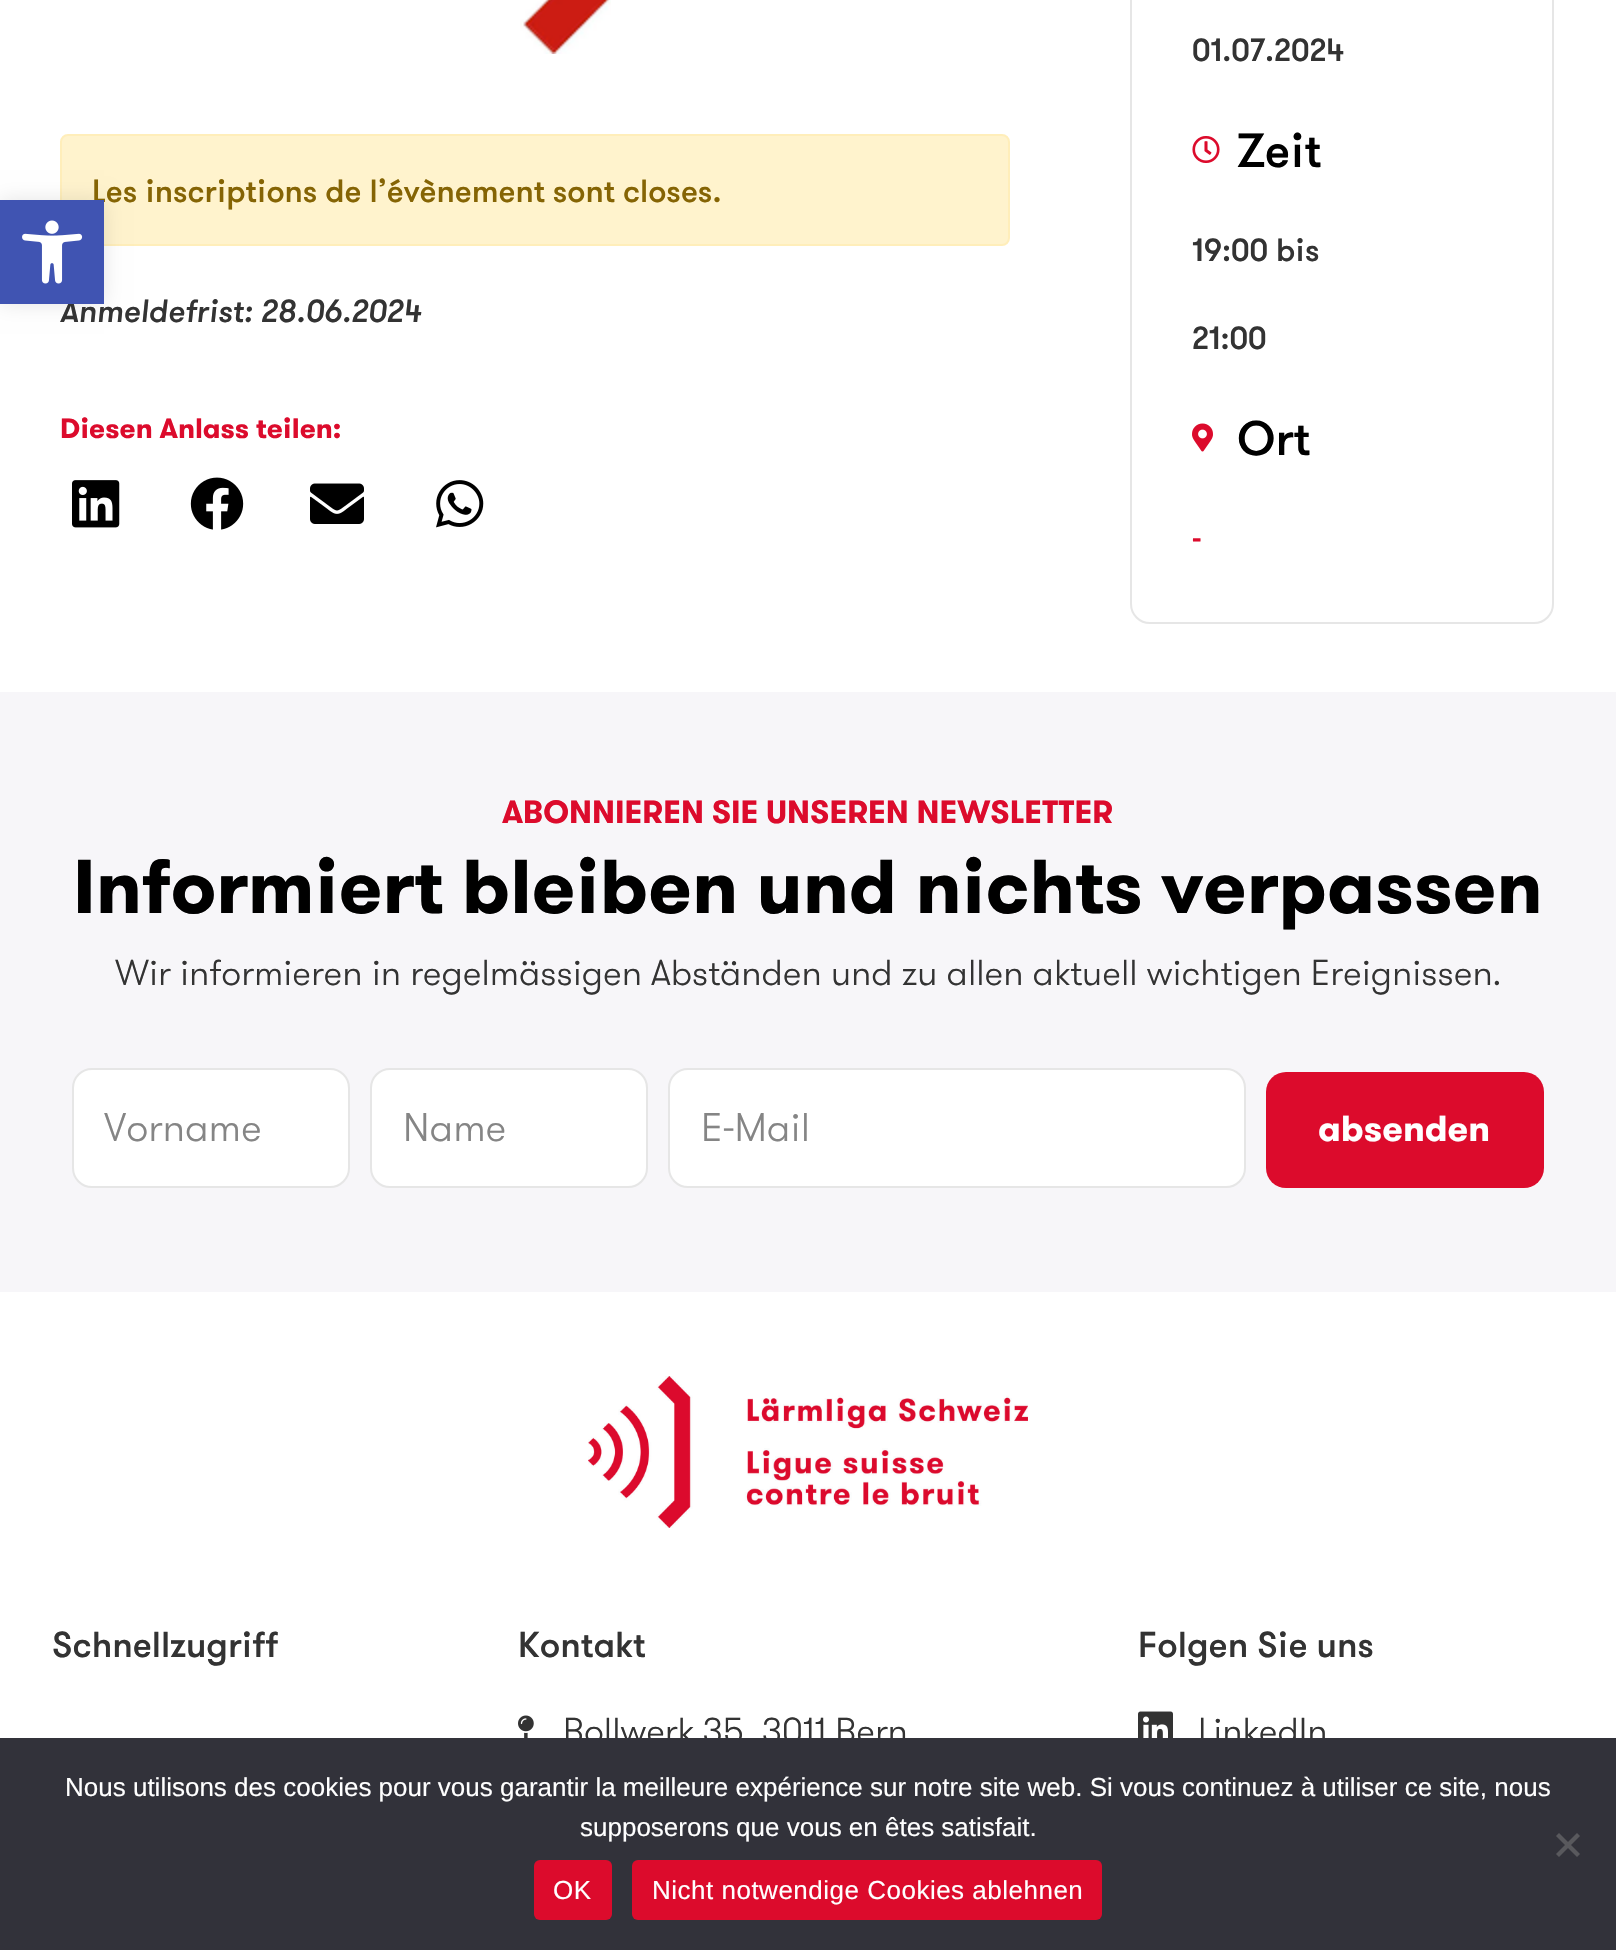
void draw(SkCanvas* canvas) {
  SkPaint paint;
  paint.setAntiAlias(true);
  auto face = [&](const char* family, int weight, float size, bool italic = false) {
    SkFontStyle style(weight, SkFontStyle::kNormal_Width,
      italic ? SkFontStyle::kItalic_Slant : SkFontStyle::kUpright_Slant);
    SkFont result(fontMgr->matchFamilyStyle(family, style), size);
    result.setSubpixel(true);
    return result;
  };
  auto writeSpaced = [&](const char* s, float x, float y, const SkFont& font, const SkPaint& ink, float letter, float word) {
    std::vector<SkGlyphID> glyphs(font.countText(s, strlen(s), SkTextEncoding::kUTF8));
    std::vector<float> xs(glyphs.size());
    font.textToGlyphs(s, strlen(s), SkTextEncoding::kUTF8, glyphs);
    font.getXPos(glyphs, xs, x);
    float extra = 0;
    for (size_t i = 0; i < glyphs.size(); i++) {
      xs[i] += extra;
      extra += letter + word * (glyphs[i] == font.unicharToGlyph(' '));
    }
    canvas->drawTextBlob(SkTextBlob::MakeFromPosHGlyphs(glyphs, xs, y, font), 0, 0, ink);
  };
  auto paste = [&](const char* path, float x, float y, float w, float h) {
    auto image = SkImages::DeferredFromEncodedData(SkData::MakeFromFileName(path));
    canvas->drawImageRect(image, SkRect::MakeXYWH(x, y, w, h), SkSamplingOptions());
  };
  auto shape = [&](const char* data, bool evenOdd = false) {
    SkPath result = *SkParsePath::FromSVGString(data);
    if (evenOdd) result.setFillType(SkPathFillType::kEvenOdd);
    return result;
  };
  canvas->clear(0xffffffff);
  paste("img/1.png", 520, 0, 91, 54);
  paint.setColor(0xfffff3cd);
  canvas->drawRoundRect(SkRect::MakeXYWH(61, 135, 948, 110), 7, 7, paint);
  paint.setStroke(true);
  paint.setStrokeWidth(2);
  paint.setColor(0xffffeeba);
  canvas->drawRoundRect(SkRect::MakeXYWH(61, 135, 948, 110), 7, 7, paint);
  paste("img/2.png", 72, 480, 48, 48);
  paste("img/3.png", 190, 477, 54, 53);
  paste("img/4.png", 310, 483, 54, 41);
  paste("img/5.png", 436, 480, 48, 48);
  paint.setColor(0xffe6e6e6);
  canvas->drawRoundRect(SkRect::MakeXYWH(1131, -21, 422, 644), 19, 19, paint);
  paste("img/6.png", 1192, 136, 28, 27);
  paste("img/7.png", 1192, 423, 21, 29);
  paint.setStroke(false);
  paint.setColor(0x1a000000);
  paint.setMaskFilter(SkMaskFilter::MakeBlur(kNormal_SkBlurStyle, 10));
  canvas->drawRect(SkRect::MakeXYWH(0, 200, 104, 104), paint);
  paint.setMaskFilter(nullptr);
  paint.setColor(0xfff7f6f9);
  canvas->drawRect(SkRect::MakeXYWH(0, 692, 1616, 600), paint);
  paint.setColor(0xffffffff);
  canvas->drawRoundRect(SkRect::MakeXYWH(73, 1069, 276, 118), 19, 19, paint);
  paint.setStroke(true);
  paint.setColor(0xffe6e6e6);
  canvas->drawRoundRect(SkRect::MakeXYWH(73, 1069, 276, 118), 19, 19, paint);
  paint.setStroke(false);
  paint.setColor(0xffffffff);
  canvas->drawRoundRect(SkRect::MakeXYWH(371, 1069, 276, 118), 19, 19, paint);
  paint.setStroke(true);
  paint.setColor(0xffe6e6e6);
  canvas->drawRoundRect(SkRect::MakeXYWH(371, 1069, 276, 118), 19, 19, paint);
  paint.setStroke(false);
  paint.setColor(0xffffffff);
  canvas->drawRoundRect(SkRect::MakeXYWH(669, 1069, 576, 118), 19, 19, paint);
  paint.setStroke(true);
  paint.setColor(0xffe6e6e6);
  canvas->drawRoundRect(SkRect::MakeXYWH(669, 1069, 576, 118), 19, 19, paint);
  paint.setStroke(false);
  paint.setColor(0xffdc0b2c);
  canvas->drawRoundRect(SkRect::MakeXYWH(1266, 1072, 278, 116), 20, 20, paint);
  paste("img/9.png", 588, 1376, 440, 152);
  paste("img/10.png", 518, 1715, 16, 23);
  paste("img/11.png", 1138, 1711, 35, 27);
  auto f0 = face("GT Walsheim", 500, 32);
  paint.setColor(0xff856404);
  canvas->drawString("Les inscriptions de l’évènement sont closes.", 92, 202, f0, paint);
  auto f1 = face("GT Walsheim", 500, 32, true);
  paint.setColor(0xff333333);
  canvas->drawString("Anmeldefrist: 28.06.2024", 60, 322, f1, paint);
  auto f2 = face("GT Walsheim", 700, 28);
  paint.setColor(0xffdc0b2c);
  canvas->drawString("Diesen Anlass teilen:", 60, 438, f2, paint);
  paint.setColor(0xff333333);
  canvas->drawString("01.07.2024", 1192, 61, f0, paint);
  auto f3 = face("GT Walsheim", 500, 48);
  paint.setColor(0xff000000);
  canvas->drawString("Zeit", 1237, 167, f3, paint);
  paint.setColor(0xff333333);
  canvas->drawString("19:00 bis", 1192, 261, f0, paint);
  canvas->drawString("21:00", 1192, 349, f0, paint);
  paint.setColor(0xff000000);
  canvas->drawString("Ort", 1237, 455, f3, paint);
  paint.setColor(0xffdc0b2c);
  canvas->drawString("-", 1192, 549, f0, paint);
  paint.setColor(0xff4054b2);
  canvas->drawRect(SkRect::MakeXYWH(0, 200, 104, 104), paint);
  paste("img/8.png", 22, 220, 61, 64);
  auto f4 = face("GT Walsheim", 700, 32);
  paint.setColor(0xffdc0b2c);
  canvas->drawString("ABONNIEREN SIE UNSEREN NEWSLETTER", 502, 823, f4, paint);
  auto f5 = face("GT Walsheim", 700, 76);
  paint.setColor(0xff000000);
  canvas->drawString("Informiert bleiben und nichts verpassen", 73, 913, f5, paint);
  auto f6 = face("GT Walsheim", 300, 36);
  paint.setColor(0xff333333);
  canvas->drawString("Wir informieren in regelmässigen Abständen und zu allen aktuell wichtigen Ereignissen.", 115, 985, f6, paint);
  auto f7 = face("GT Walsheim", 300, 40);
  paint.setColor(0xff858585);
  {
    const struct { const char* s; float x, y; } items[] = {
      {"Vorname", 104, 1141},
      {"Name", 403, 1141},
      {"E-Mail", 701, 1141},
    };
    for (auto [s, x, y] : items) {
      canvas->drawString(s, x, y, f7, paint);
    }
  }
  auto f8 = face("GT Walsheim", 700, 36);
  paint.setColor(0xffffffff);
  canvas->drawString("absenden", 1318, 1141, f8, paint);
  auto f9 = face("GT Walsheim", 500, 36);
  paint.setColor(0xff333333);
  canvas->drawString("Schnellzugriff", 52, 1657, f9, paint);
  canvas->drawString("Kontakt", 518, 1657, f9, paint);
  canvas->drawString("Bollwerk 35, 3011 Bern", 563, 1743, f6, paint);
  canvas->drawString("Folgen Sie uns", 1138, 1657, f9, paint);
  canvas->drawString("LinkedIn", 1198, 1743, f6, paint);
  paint.setColor(0xff32323a);
  canvas->drawRect(SkRect::MakeXYWH(0, 1738, 1616, 212), paint);
  auto f10 = face("Liberation Sans", 400, 26);
  paint.setColor(0xffffffff);
  canvas->drawString("Nous utilisons des cookies pour vous garantir la meilleure expérience sur notre site web. Si vous continuez à utiliser ce site, nous", 65, 1796, f10, paint);
  canvas->drawString("supposerons que vous en êtes satisfait.", 580, 1836, f10, paint);
  paint.setColor(0xff59595d);
  canvas->drawPath(shape("M1577 1833L1580 1836L1559 1857L1556 1854Z"), paint);
  canvas->drawPath(shape("M1556 1836L1559 1833L1580 1854L1577 1857Z"), paint);
  paint.setColor(0xffdc0b2c);
  canvas->drawRoundRect(SkRect::MakeXYWH(534, 1860, 78, 60), 6, 6, paint);
  paint.setColor(0xffffffff);
  writeSpaced("OK", 553, 1899, f10, paint, 0.5f, 0);
  paint.setColor(0xffdc0b2c);
  canvas->drawRoundRect(SkRect::MakeXYWH(632, 1860, 470, 60), 6, 6, paint);
  paint.setColor(0xffffffff);
  writeSpaced("Nicht notwendige Cookies ablehnen", 652, 1899, f10, paint, 0.5f, 0);
}
